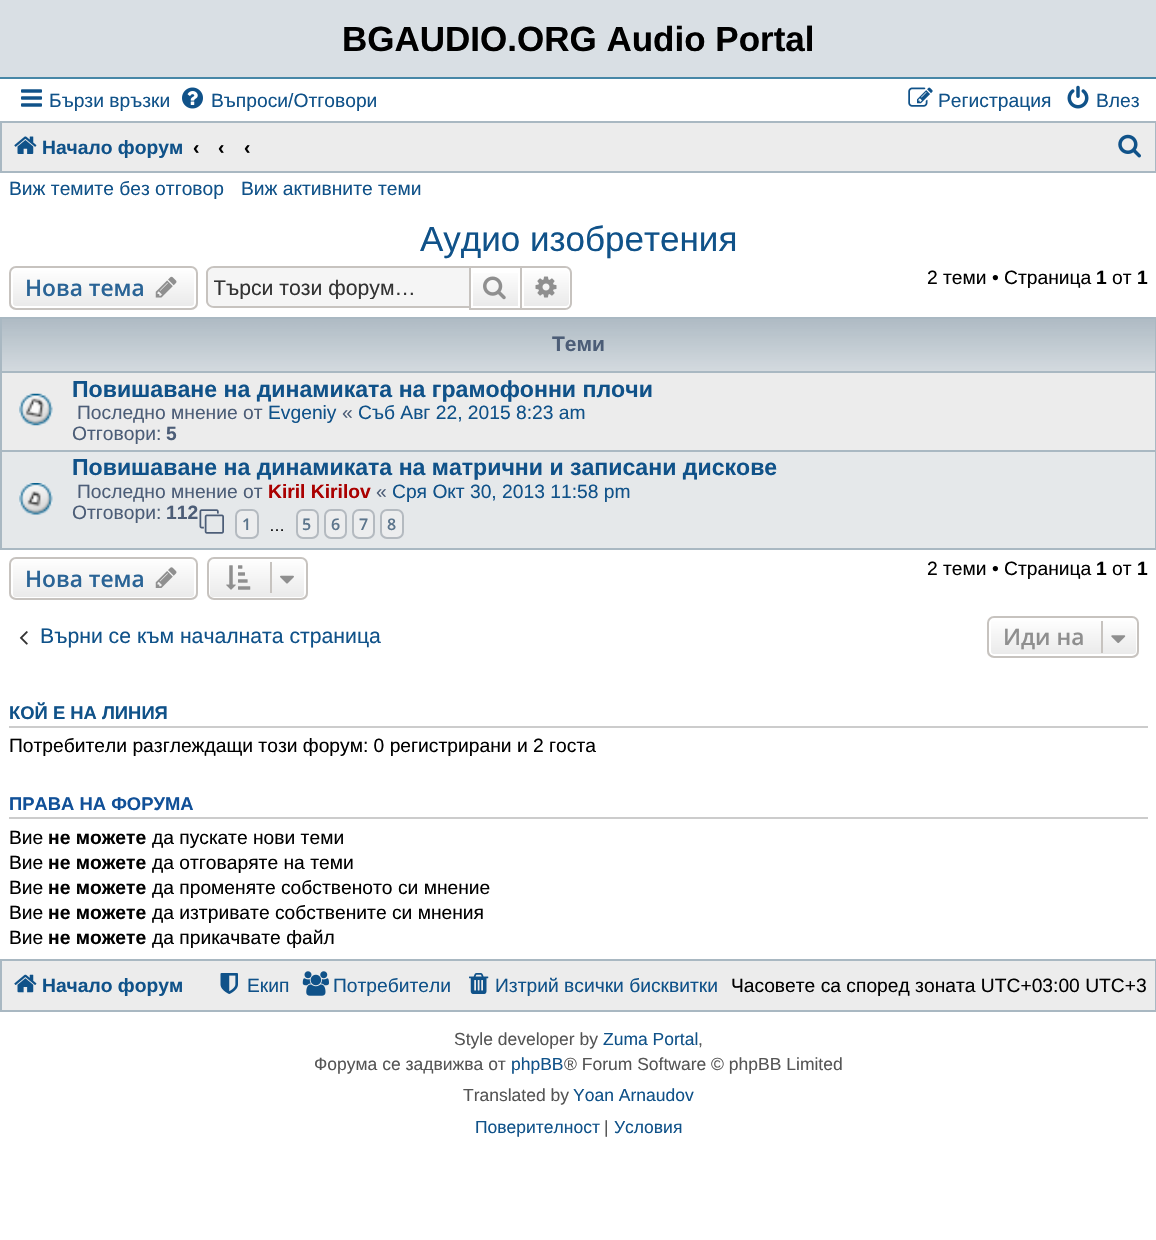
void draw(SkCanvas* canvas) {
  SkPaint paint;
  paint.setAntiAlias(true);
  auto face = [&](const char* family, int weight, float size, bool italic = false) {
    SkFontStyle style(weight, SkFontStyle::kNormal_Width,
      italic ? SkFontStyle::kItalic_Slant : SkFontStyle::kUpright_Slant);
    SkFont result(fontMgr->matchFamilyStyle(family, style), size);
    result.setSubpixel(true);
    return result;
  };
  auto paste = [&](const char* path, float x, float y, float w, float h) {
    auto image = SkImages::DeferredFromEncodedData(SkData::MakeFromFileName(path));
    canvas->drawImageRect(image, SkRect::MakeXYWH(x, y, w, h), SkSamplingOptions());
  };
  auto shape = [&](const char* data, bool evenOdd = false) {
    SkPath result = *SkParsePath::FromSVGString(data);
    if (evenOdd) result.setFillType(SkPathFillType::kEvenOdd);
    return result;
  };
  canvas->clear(0xffffffff);
  paint.setColor(0xffd9dfe4);
  canvas->drawRect(SkRect::MakeXYWH(0, 0, 1156, 77), paint);
  paint.setColor(0xff4787a7);
  canvas->drawRect(SkRect::MakeXYWH(0, 77, 1156, 2), paint);
  paste("img/1.png", 21, 89, 21, 18);
  paste("img/2.png", 182, 87, 21, 22);
  paste("img/3.png", 908, 87, 25, 20);
  paste("img/4.png", 1067, 85, 22, 24);
  paint.setColor(0xffececec);
  canvas->drawRect(SkRect::MakeXYWH(1, 122, 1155, 50), paint);
  paint.setStroke(true);
  paint.setStrokeWidth(2);
  paint.setColor(0xffa9b8c2);
  canvas->drawRect(SkRect::MakeXYWH(1, 122, 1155, 50), paint);
  paste("img/5.png", 14, 136, 23, 18);
  paste("img/6.png", 1118, 134, 23, 24);
  canvas->save();
  canvas->clipPath(shape("M16 266H191C195 266 198 269 198 273V303C198 307 195 310 191 310H16C12 310 9 307 9 303V273C9 269 12 266 16 266Z"), true);
  paint.setStroke(false);
  {
    const SkColor colors[] = {0xffffffff, 0xffe9e9e9};
    const float stops[] = {0, 1};
    const SkPoint ends[] = {{103, 268}, {103, 308}};
    paint.setShader(SkGradientShader::MakeLinear(ends, colors, stops, 2, SkTileMode::kClamp));
    paint.setAlpha(255);
  }
  canvas->drawRect(SkRect::MakeXYWH(9, 268, 189, 40), paint);
  canvas->restore();
  paint.setStroke(true);
  paint.setShader(nullptr);
  paint.setColor(0xffffffff);
  canvas->drawRoundRect(SkRect::MakeXYWH(12, 269, 183, 38), 4, 4, paint);
  paint.setColor(0xffc7c3bf);
  canvas->drawRoundRect(SkRect::MakeXYWH(10, 267, 187, 42), 6, 6, paint);
  paste("img/7.png", 155, 276, 22, 22);
  paint.setStroke(false);
  paint.setColor(0xfff5f5f5);
  canvas->drawPath(shape("M213 268H469V306H213C210 306 208 304 208 301V273C208 270 210 268 213 268Z"), paint);
  paint.setColor(0xffc7c3bf);
  canvas->drawPath(shape("M214 266H469V308H214C210 308 206 305 206 301V273C206 269 210 266 214 266ZM214 268H469V306H214C211 306 208 304 208 301V273C208 270 211 268 214 268Z", true), paint);
  {
    const SkColor colors[] = {0xffffffff, 0xffe9e9e9};
    const float stops[] = {0, 1};
    const SkPoint ends[] = {{495, 268}, {495, 308}};
    paint.setShader(SkGradientShader::MakeLinear(ends, colors, stops, 2, SkTileMode::kClamp));
    paint.setAlpha(255);
  }
  canvas->drawRect(SkRect::MakeXYWH(473, 273, 45, 33), paint);
  paint.setStroke(true);
  paint.setShader(nullptr);
  paint.setColor(0xffc7c3bf);
  canvas->drawRect(SkRect::MakeXYWH(470, 267, 51, 42), paint);
  paste("img/8.png", 483, 276, 23, 24);
  paint.setStroke(false);
  {
    const SkColor colors[] = {0xffffffff, 0xffe9e9e9};
    const float stops[] = {0, 1};
    const SkPoint ends[] = {{546, 268}, {546, 308}};
    paint.setShader(SkGradientShader::MakeLinear(ends, colors, stops, 2, SkTileMode::kClamp));
    paint.setAlpha(255);
  }
  canvas->drawPath(shape("M523 269H566C568 269 570 271 570 273V303C570 305 568 307 566 307H523Z"), paint);
  paint.setStroke(true);
  paint.setShader(nullptr);
  paint.setColor(0xffffffff);
  canvas->drawPath(shape("M523 269H566C568 269 570 271 570 273V303C570 305 568 307 566 307H523Z"), paint);
  paint.setStroke(false);
  paint.setColor(0xffc7c3bf);
  canvas->drawPath(shape("M522 266H565C569 266 572 269 572 273V303C572 307 569 310 565 310H522ZM522 268H565C568 268 570 270 570 273V303C570 306 568 308 565 308H522Z", true), paint);
  paste("img/9.png", 535, 276, 22, 22);
  paint.setColor(0xffececec);
  canvas->drawRect(SkRect::MakeXYWH(2, 373, 1153, 77), paint);
  paste("img/10.png", 2, 319, 1153, 52);
  paint.setStroke(true);
  paint.setColor(0xffa9b8c2);
  canvas->drawRect(SkRect::MakeXYWH(1, 318, 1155, 231), paint);
  paint.setStroke(false);
  canvas->drawRect(SkRect::MakeXYWH(2, 371, 1153, 2), paint);
  paste("img/11.png", 19, 393, 34, 33);
  paint.setColor(0xffe5e8ea);
  canvas->drawRect(SkRect::MakeXYWH(2, 452, 1153, 96), paint);
  paint.setColor(0xffa9b8c2);
  canvas->drawRect(SkRect::MakeXYWH(2, 450, 1153, 2), paint);
  paste("img/12.png", 19, 483, 34, 32);
  paste("img/13.png", 199, 509, 25, 25);
  paint.setColor(0xffecedee);
  canvas->drawRoundRect(SkRect::MakeXYWH(236, 510, 22, 28), 6, 6, paint);
  paint.setStroke(true);
  paint.setColor(0xffb4bac0);
  canvas->drawRoundRect(SkRect::MakeXYWH(236, 510, 22, 28), 6, 6, paint);
  paint.setStroke(false);
  paint.setColor(0xffecedee);
  canvas->drawRoundRect(SkRect::MakeXYWH(297, 510, 21, 28), 6, 6, paint);
  paint.setStroke(true);
  paint.setColor(0xffb4bac0);
  canvas->drawRoundRect(SkRect::MakeXYWH(297, 510, 21, 28), 6, 6, paint);
  paint.setStroke(false);
  paint.setColor(0xffecedee);
  canvas->drawRoundRect(SkRect::MakeXYWH(325, 510, 21, 28), 6, 6, paint);
  paint.setStroke(true);
  paint.setColor(0xffb4bac0);
  canvas->drawRoundRect(SkRect::MakeXYWH(325, 510, 21, 28), 6, 6, paint);
  paint.setStroke(false);
  paint.setColor(0xffecedee);
  canvas->drawRoundRect(SkRect::MakeXYWH(353, 510, 21, 28), 6, 6, paint);
  paint.setStroke(true);
  paint.setColor(0xffb4bac0);
  canvas->drawRoundRect(SkRect::MakeXYWH(353, 510, 21, 28), 6, 6, paint);
  paint.setStroke(false);
  paint.setColor(0xffecedee);
  canvas->drawRoundRect(SkRect::MakeXYWH(381, 510, 22, 28), 6, 6, paint);
  paint.setStroke(true);
  paint.setColor(0xffb4bac0);
  canvas->drawRoundRect(SkRect::MakeXYWH(381, 510, 22, 28), 6, 6, paint);
  canvas->save();
  canvas->clipPath(shape("M16 557H191C195 557 198 560 198 564V593C198 597 195 600 191 600H16C12 600 9 597 9 593V564C9 560 12 557 16 557Z"), true);
  paint.setStroke(false);
  {
    const SkColor colors[] = {0xffffffff, 0xffe9e9e9};
    const float stops[] = {0, 1};
    const SkPoint ends[] = {{103, 558}, {103, 599}};
    paint.setShader(SkGradientShader::MakeLinear(ends, colors, stops, 2, SkTileMode::kClamp));
    paint.setAlpha(255);
  }
  canvas->drawRect(SkRect::MakeXYWH(9, 558, 189, 41), paint);
  canvas->restore();
  paint.setStroke(true);
  paint.setShader(nullptr);
  paint.setColor(0xffffffff);
  canvas->drawRoundRect(SkRect::MakeXYWH(12, 559, 183, 39), 4, 4, paint);
  paint.setColor(0xffc7c3bf);
  canvas->drawRoundRect(SkRect::MakeXYWH(10, 558, 187, 41), 6, 6, paint);
  paste("img/14.png", 155, 567, 22, 21);
  canvas->save();
  canvas->clipPath(shape("M214 557H301C305 557 308 560 308 564V593C308 597 305 600 301 600H214C210 600 207 597 207 593V564C207 560 210 557 214 557Z"), true);
  paint.setStroke(false);
  {
    const SkColor colors[] = {0xffffffff, 0xffe9e9e9};
    const float stops[] = {0, 1};
    const SkPoint ends[] = {{257, 558}, {257, 599}};
    paint.setShader(SkGradientShader::MakeLinear(ends, colors, stops, 2, SkTileMode::kClamp));
    paint.setAlpha(255);
  }
  canvas->drawRect(SkRect::MakeXYWH(207, 558, 101, 41), paint);
  canvas->restore();
  paint.setStroke(true);
  paint.setShader(nullptr);
  paint.setColor(0xffffffff);
  canvas->drawRoundRect(SkRect::MakeXYWH(209, 559, 96, 39), 4, 4, paint);
  paint.setColor(0xffc7c3bf);
  canvas->drawRoundRect(SkRect::MakeXYWH(208, 558, 99, 41), 6, 6, paint);
  paste("img/15.png", 226, 565, 25, 25);
  paint.setStroke(false);
  canvas->drawRect(SkRect::MakeXYWH(270, 562, 2, 31), paint);
  paste("img/16.png", 280, 575, 14, 9);
  paste("img/17.png", 19, 631, 9, 14);
  canvas->save();
  canvas->clipPath(shape("M994 616H1132C1136 616 1139 619 1139 623V651C1139 655 1136 658 1132 658H994C990 658 987 655 987 651V623C987 619 990 616 994 616Z"), true);
  {
    const SkColor colors[] = {0xffffffff, 0xffe9e9e9};
    const float stops[] = {0, 1};
    const SkPoint ends[] = {{1063, 618}, {1063, 656}};
    paint.setShader(SkGradientShader::MakeLinear(ends, colors, stops, 2, SkTileMode::kClamp));
    paint.setAlpha(255);
  }
  canvas->drawRect(SkRect::MakeXYWH(987, 618, 152, 38), paint);
  canvas->restore();
  paint.setStroke(true);
  paint.setShader(nullptr);
  paint.setColor(0xffffffff);
  canvas->drawRoundRect(SkRect::MakeXYWH(990, 619, 147, 36), 4, 4, paint);
  paint.setColor(0xffc7c3bf);
  canvas->drawRoundRect(SkRect::MakeXYWH(988, 617, 150, 40), 6, 6, paint);
  paint.setStroke(false);
  canvas->drawRect(SkRect::MakeXYWH(1101, 621, 2, 32), paint);
  paste("img/18.png", 1111, 635, 15, 8);
  paint.setColor(0xffcccccc);
  canvas->drawRect(SkRect::MakeXYWH(9, 726, 1139, 2), paint);
  canvas->drawRect(SkRect::MakeXYWH(9, 817, 1139, 2), paint);
  paint.setColor(0xffececec);
  canvas->drawRect(SkRect::MakeXYWH(1, 960, 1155, 51), paint);
  paint.setStroke(true);
  paint.setColor(0xffa9b8c2);
  canvas->drawRect(SkRect::MakeXYWH(1, 960, 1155, 51), paint);
  paste("img/19.png", 14, 974, 23, 19);
  paste("img/20.png", 220, 973, 18, 21);
  paste("img/21.png", 302, 971, 27, 25);
  paste("img/22.png", 469, 973, 20, 21);
  auto f0 = face("Liberation Sans", 700, 35);
  paint.setStroke(false);
  paint.setColor(0xff000000);
  canvas->drawString("BGAUDIO.ORG Audio Portal", 342, 51, f0, paint);
  auto f1 = face("Liberation Sans", 400, 19.25f);
  paint.setColor(0xff105289);
  {
    const struct { const char* s; float x, y; } items[] = {
      {"Бързи връзки", 49, 107},
      {"Въпроси/Отговори", 211, 107},
      {"Регистрация", 938, 107},
      {"Влез", 1096, 107},
    };
    for (auto [s, x, y] : items) {
      canvas->drawString(s, x, y, f1, paint);
    }
  }
  auto f2 = face("Liberation Sans", 700, 19.25f);
  canvas->drawString("Начало форум", 42, 154, f2, paint);
  paint.setColor(0xff000000);
  {
    const struct { const char* s; float x, y; } items[] = {
      {"‹", 193, 154},
      {"‹", 218, 154},
      {"‹", 244, 154},
    };
    for (auto [s, x, y] : items) {
      canvas->drawString(s, x, y, f2, paint);
    }
  }
  paint.setColor(0xff105289);
  canvas->drawString("Виж темите без отговор", 9, 195, f1, paint);
  canvas->drawString("Виж активните теми", 241, 195, f1, paint);
  auto f3 = face("Liberation Sans", 400, 35);
  canvas->drawString("Аудио изобретения", 420, 251, f3, paint);
  auto f4 = face("Open Sans", 600, 22.75f);
  paint.setColor(0xff2a6496);
  canvas->drawString("Нова тема", 25, 296, f4, paint);
  canvas->save();
  canvas->clipRect(SkRect::MakeXYWH(214, 275, 243, 24));
  auto f5 = face("Liberation Sans", 400, 21.2f);
  paint.setColor(0xff333333);
  canvas->drawString("Търси този форум…", 213, 295, f5, paint);
  canvas->restore();
  paint.setColor(0xff000000);
  canvas->drawString("2 теми • Страница", 927, 284, f1, paint);
  canvas->drawString("1", 1096, 284, f2, paint);
  canvas->drawString("от", 1112, 284, f1, paint);
  canvas->drawString("1", 1137, 284, f2, paint);
  auto f6 = face("Liberation Sans", 700, 21);
  paint.setColor(0xff4c5d77);
  canvas->drawString("Теми", 552, 351, f6, paint);
  auto f7 = face("Liberation Sans", 700, 23.1f);
  paint.setColor(0xff105289);
  canvas->drawString("Повишаване на динамиката на грамофонни плочи", 72, 397, f7, paint);
  paint.setColor(0xff4c5d77);
  canvas->drawString("Последно мнение от", 77, 419, f1, paint);
  paint.setColor(0xff105289);
  canvas->drawString("Evgeniy", 268, 419, f1, paint);
  paint.setColor(0xff4c5d77);
  canvas->drawString("«", 342, 419, f1, paint);
  paint.setColor(0xff105289);
  canvas->drawString("Съб Авг 22, 2015 8:23 am", 358, 419, f1, paint);
  paint.setColor(0xff4c5d77);
  canvas->drawString("Отговори:", 72, 440, f1, paint);
  canvas->drawString("5", 166, 440, f2, paint);
  paint.setColor(0xff105289);
  canvas->drawString("Повишаване на динамиката на матрични и записани дискове", 72, 475, f7, paint);
  paint.setColor(0xff4c5d77);
  canvas->drawString("Последно мнение от", 77, 498, f1, paint);
  paint.setColor(0xffaa0000);
  canvas->drawString("Kiril Kirilov", 268, 498, f2, paint);
  paint.setColor(0xff4c5d77);
  canvas->drawString("«", 376, 498, f1, paint);
  paint.setColor(0xff105289);
  canvas->drawString("Сря Окт 30, 2013 11:58 pm", 392, 498, f1, paint);
  paint.setColor(0xff4c5d77);
  canvas->drawString("Отговори:", 72, 519, f1, paint);
  canvas->drawString("112", 166, 519, f2, paint);
  auto f8 = face("Open Sans", 600, 16);
  paint.setColor(0xff5c758c);
  canvas->drawString("1", 242, 530, f8, paint);
  auto f9 = face("Liberation Sans", 400, 16);
  paint.setColor(0xff000000);
  canvas->drawString("…", 269, 531, f9, paint);
  paint.setColor(0xff5c758c);
  {
    const struct { const char* s; float x, y; } items[] = {
      {"5", 302, 530},
      {"6", 331, 530},
      {"7", 359, 530},
      {"8", 387, 530},
    };
    for (auto [s, x, y] : items) {
      canvas->drawString(s, x, y, f8, paint);
    }
  }
  paint.setColor(0xff2a6496);
  canvas->drawString("Нова тема", 25, 587, f4, paint);
  paint.setColor(0xff000000);
  canvas->drawString("2 теми • Страница", 927, 575, f1, paint);
  canvas->drawString("1", 1096, 575, f2, paint);
  canvas->drawString("от", 1112, 575, f1, paint);
  canvas->drawString("1", 1137, 575, f2, paint);
  paint.setColor(0xff105289);
  canvas->drawString("Върни се към началната страница", 40, 643, f5, paint);
  paint.setColor(0xff8f8f8f);
  canvas->drawString("Иди на", 1003, 645, f4, paint);
  auto f10 = face("Liberation Sans", 700, 18.4f);
  paint.setColor(0xff105289);
  canvas->drawString("КОЙ Е НА ЛИНИЯ", 9, 719, f10, paint);
  paint.setColor(0xff000000);
  canvas->drawString("Потребители разглеждащи този форум: 0 регистрирани и 2 госта", 9, 752, f1, paint);
  paint.setColor(0xff115098);
  canvas->drawString("ПРАВА НА ФОРУМА", 9, 810, f10, paint);
  paint.setColor(0xff000000);
  canvas->drawString("Вие", 9, 844, f1, paint);
  canvas->drawString("не можете", 48, 844, f2, paint);
  canvas->drawString("да пускате нови теми", 152, 844, f1, paint);
  canvas->drawString("Вие", 9, 869, f1, paint);
  canvas->drawString("не можете", 48, 869, f2, paint);
  canvas->drawString("да отговаряте на теми", 152, 869, f1, paint);
  canvas->drawString("Вие", 9, 894, f1, paint);
  canvas->drawString("не можете", 48, 894, f2, paint);
  canvas->drawString("да променяте собственото си мнение", 152, 894, f1, paint);
  canvas->drawString("Вие", 9, 919, f1, paint);
  canvas->drawString("не можете", 48, 919, f2, paint);
  canvas->drawString("да изтривате собствените си мнения", 152, 919, f1, paint);
  canvas->drawString("Вие", 9, 944, f1, paint);
  canvas->drawString("не можете", 48, 944, f2, paint);
  canvas->drawString("да прикачвате файл", 152, 944, f1, paint);
  paint.setColor(0xff105289);
  canvas->drawString("Начало форум", 42, 992, f2, paint);
  {
    const struct { const char* s; float x, y; } items[] = {
      {"Екип", 247, 992},
      {"Потребители", 333, 992},
      {"Изтрий всички бисквитки", 495, 992},
    };
    for (auto [s, x, y] : items) {
      canvas->drawString(s, x, y, f1, paint);
    }
  }
  paint.setColor(0xff000000);
  canvas->drawString("Часовете са според зоната UTC+03:00 UTC+3", 731, 992, f1, paint);
  auto f11 = face("Liberation Sans", 400, 17.5f);
  paint.setColor(0xff555555);
  canvas->drawString("Style developer by", 454, 1045, f11, paint);
  paint.setColor(0xff105289);
  canvas->drawString("Zuma Portal", 603, 1045, f11, paint);
  paint.setColor(0xff555555);
  canvas->drawString(",", 698, 1045, f11, paint);
  canvas->drawString("Форума се задвижва от", 314, 1070, f11, paint);
  paint.setColor(0xff105289);
  canvas->drawString("phpBB", 511, 1070, f11, paint);
  paint.setColor(0xff555555);
  canvas->drawString("® Forum Software © phpBB Limited", 564, 1070, f11, paint);
  canvas->drawString("Translated by", 463, 1101, f11, paint);
  paint.setColor(0xff105289);
  canvas->drawString("Yoan Arnaudov", 573, 1101, f11, paint);
  canvas->drawString("Поверителност", 475, 1133, f11, paint);
  paint.setColor(0xff555555);
  canvas->drawString("|", 604, 1133, f11, paint);
  paint.setColor(0xff105289);
  canvas->drawString("Условия", 614, 1133, f11, paint);
}
